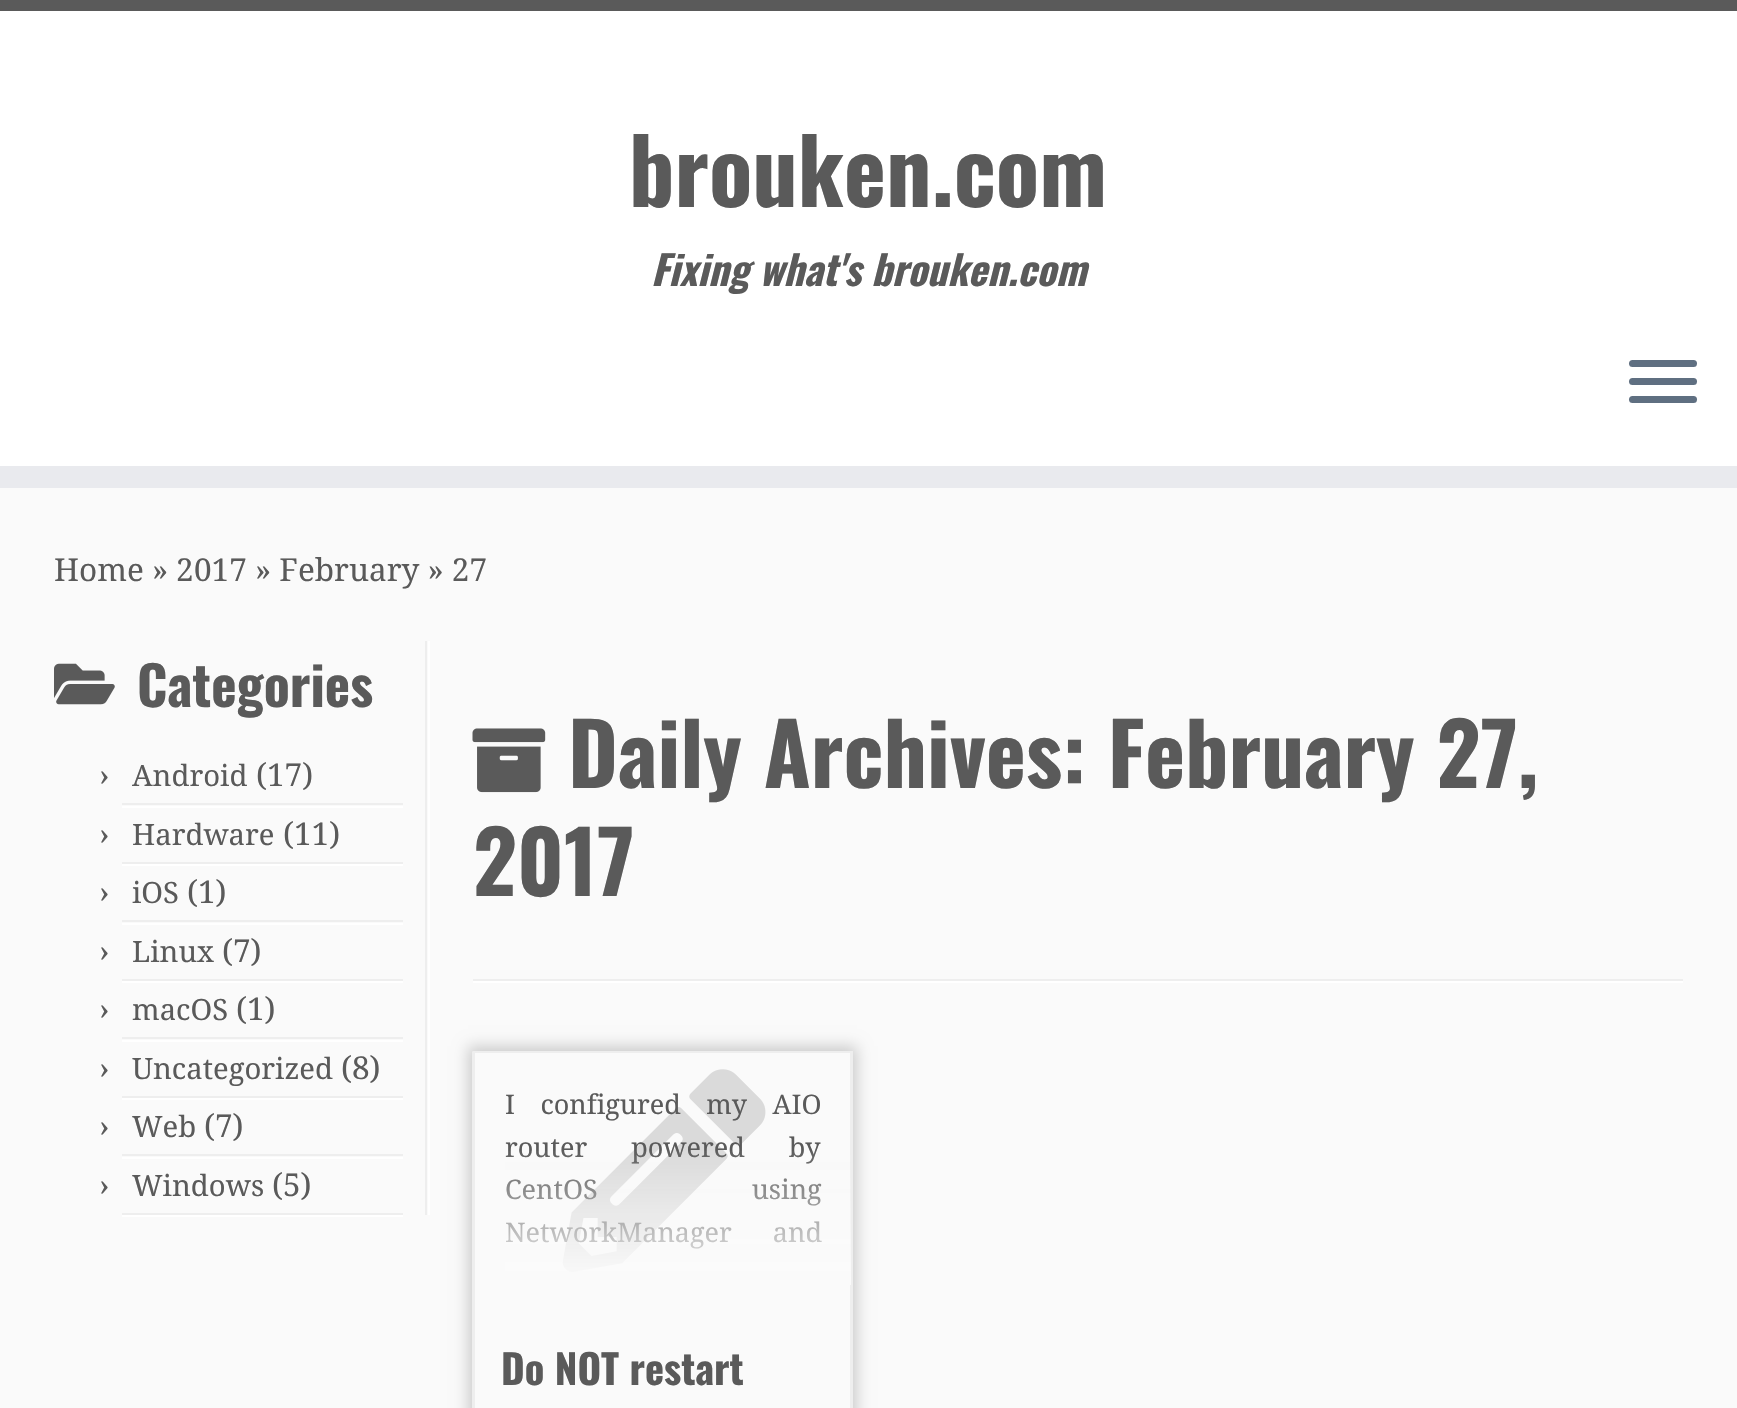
void draw(SkCanvas* canvas) {
  SkPaint paint;
  paint.setAntiAlias(true);
  auto face = [&](const char* family, int weight, float size, bool italic = false) {
    SkFontStyle style(weight, SkFontStyle::kNormal_Width,
      italic ? SkFontStyle::kItalic_Slant : SkFontStyle::kUpright_Slant);
    SkFont result(fontMgr->matchFamilyStyle(family, style), size);
    result.setSubpixel(true);
    return result;
  };
  auto writeSpaced = [&](const char* s, float x, float y, const SkFont& font, const SkPaint& ink, float letter, float word) {
    std::vector<SkGlyphID> glyphs(font.countText(s, strlen(s), SkTextEncoding::kUTF8));
    std::vector<float> xs(glyphs.size());
    font.textToGlyphs(s, strlen(s), SkTextEncoding::kUTF8, glyphs);
    font.getXPos(glyphs, xs, x);
    float extra = 0;
    for (size_t i = 0; i < glyphs.size(); i++) {
      xs[i] += extra;
      extra += letter + word * (glyphs[i] == font.unicharToGlyph(' '));
    }
    canvas->drawTextBlob(SkTextBlob::MakeFromPosHGlyphs(glyphs, xs, y, font), 0, 0, ink);
  };
  auto paste = [&](const char* path, float x, float y, float w, float h) {
    auto image = SkImages::DeferredFromEncodedData(SkData::MakeFromFileName(path));
    canvas->drawImageRect(image, SkRect::MakeXYWH(x, y, w, h), SkSamplingOptions());
  };
  auto shape = [&](const char* data, bool evenOdd = false) {
    SkPath result = *SkParsePath::FromSVGString(data);
    if (evenOdd) result.setFillType(SkPathFillType::kEvenOdd);
    return result;
  };
  canvas->clear(0xfffafafa);
  {
    const struct { float x, y, w, h; SkColor color; } items[] = {
      {0, 11, 1737, 455, 0xffffffff},
      {0, 0, 1737, 11, 0xff5a5a5a},
      {0, 466, 1737, 22, 0xffe9eaee},
    };
    for (auto [x, y, w, h, color] : items) {
      paint.setColor(color);
      canvas->drawRect(SkRect::MakeXYWH(x, y, w, h), paint);
    }
  }
  paint.setColor(0xff5f6f81);
  canvas->drawRoundRect(SkRect::MakeXYWH(1629, 360, 68, 7), 3.5f, 3.5f, paint);
  canvas->drawRoundRect(SkRect::MakeXYWH(1629, 378, 68, 7), 3.5f, 3.5f, paint);
  canvas->drawRoundRect(SkRect::MakeXYWH(1629, 396, 68, 7), 3.5f, 3.5f, paint);
  paint.setColor(0xffeeeeee);
  canvas->drawRect(SkRect::MakeXYWH(425, 641, 2, 574), paint);
  paste("img/1.png", 54, 663, 61, 42);
  {
    const struct { float x, y, w, h; SkColor color; } items[] = {
      {122, 803, 281, 2, 0xffeeeeee},
      {122, 806, 281, 2, 0xffffffff},
      {122, 862, 281, 2, 0xffeeeeee},
      {122, 864, 281, 2, 0xffffffff},
      {122, 920, 281, 2, 0xffeeeeee},
      {122, 923, 281, 2, 0xffffffff},
      {122, 979, 281, 2, 0xffeeeeee},
      {122, 981, 281, 2, 0xffffffff},
      {122, 1037, 281, 2, 0xffeeeeee},
      {122, 1040, 281, 2, 0xffffffff},
      {122, 1096, 281, 2, 0xffeeeeee},
      {122, 1098, 281, 2, 0xffffffff},
      {122, 1154, 281, 2, 0xffeeeeee},
      {122, 1157, 281, 2, 0xffffffff},
      {122, 1213, 281, 2, 0xffeeeeee},
      {122, 1215, 281, 2, 0xffffffff},
      {428, 641, 2, 574, 0xffffffff},
    };
    for (auto [x, y, w, h, color] : items) {
      paint.setColor(color);
      canvas->drawRect(SkRect::MakeXYWH(x, y, w, h), paint);
    }
  }
  paste("img/2.png", 472, 728, 74, 65);
  paint.setColor(0xffeeeeee);
  canvas->drawRect(SkRect::MakeXYWH(473, 979, 1210, 2), paint);
  paint.setColor(0xffffffff);
  canvas->drawRect(SkRect::MakeXYWH(473, 981, 1210, 2), paint);
  canvas->save();
  canvas->clipPath(shape("M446 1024H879V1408H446ZM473 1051H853V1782H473Z", true), true);
  paint.setColor(0xffcccccc);
  paint.setMaskFilter(SkMaskFilter::MakeBlur(kNormal_SkBlurStyle, 7));
  canvas->drawRect(SkRect::MakeXYWH(468, 1046, 389, 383), paint);
  paint.setMaskFilter(nullptr);
  canvas->restore();
  paint.setColor(0xffeeeeee);
  canvas->drawRect(SkRect::MakeXYWH(473, 1051, 380, 2), paint);
  canvas->drawPath(shape("M853 1051V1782L850 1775V1053Z"), paint);
  canvas->drawPath(shape("M472 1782V1051L475 1053V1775Z"), paint);
  paste("img/3.png", 562, 1069, 204, 203);
  auto f0 = face("Oswald", 700, 90);
  paint.setColor(0xff5a5a5a);
  canvas->drawString("brouken.com", 629, 207, f0, paint);
  auto f1 = face("Oswald", 700, 40.5f, true);
  canvas->drawString("Fixing what's brouken.com", 651, 286, f1, paint);
  auto f2 = face("Droid Serif", 400, 31.5f);
  canvas->drawString("Home » 2017 » February » 27", 54, 581, f2, paint);
  auto f3 = face("Oswald", 700, 54);
  canvas->drawString("Categories", 137, 707, f3, paint);
  canvas->drawString("›", 99, 786, f2, paint);
  auto f4 = face("Droid Serif", 400, 29.25f);
  canvas->drawString("Android", 132, 786, f4, paint);
  canvas->drawString("(17)", 256, 786, f2, paint);
  canvas->drawString("›", 99, 845, f2, paint);
  canvas->drawString("Hardware", 132, 845, f4, paint);
  canvas->drawString("(11)", 283, 845, f2, paint);
  canvas->drawString("›", 99, 903, f2, paint);
  canvas->drawString("iOS", 132, 903, f4, paint);
  canvas->drawString("(1)", 187, 903, f2, paint);
  canvas->drawString("›", 99, 962, f2, paint);
  canvas->drawString("Linux", 132, 962, f4, paint);
  canvas->drawString("(7)", 222, 962, f2, paint);
  canvas->drawString("›", 99, 1020, f2, paint);
  canvas->drawString("macOS", 132, 1020, f4, paint);
  canvas->drawString("(1)", 236, 1020, f2, paint);
  canvas->drawString("›", 99, 1079, f2, paint);
  canvas->drawString("Uncategorized", 132, 1079, f4, paint);
  canvas->drawString("(8)", 341, 1079, f2, paint);
  canvas->drawString("›", 99, 1137, f2, paint);
  canvas->drawString("Web", 132, 1137, f4, paint);
  canvas->drawString("(7)", 204, 1137, f2, paint);
  canvas->drawString("›", 99, 1196, f2, paint);
  canvas->drawString("Windows", 132, 1196, f4, paint);
  canvas->drawString("(5)", 272, 1196, f2, paint);
  auto f5 = face("Oswald", 700, 85.5f);
  canvas->drawString("Daily Archives: February 27,", 568, 788, f5, paint);
  canvas->drawString("2017", 473, 896, f5, paint);
  auto f6 = face("Droid Serif", 400, 27);
  writeSpaced("I configured my AIO", 505, 1114, f6, paint, 0, 18.5f);
  writeSpaced("router powered by", 505, 1157, f6, paint, 0, 37);
  writeSpaced("CentOS using", 505, 1199, f6, paint, 0, 147);
  writeSpaced("NetworkManager and", 505, 1242, f6, paint, 0, 34);
  {
    const SkColor colors[] = {0x00fafafa, 0xfffafafa};
    const float stops[] = {0, 1};
    const SkPoint ends[] = {{663, 1148}, {663, 1285}};
    paint.setShader(SkGradientShader::MakeLinear(ends, colors, stops, 2, SkTileMode::kClamp));
    paint.setAlpha(255);
  }
  canvas->drawRect(SkRect::MakeXYWH(505, 1151, 346, 134), paint);
  auto f7 = face("Oswald", 700, 40.5f);
  paint.setShader(nullptr);
  paint.setColor(0xff5a5a5a);
  canvas->drawString("Do NOT restart", 501, 1385, f7, paint);
}
